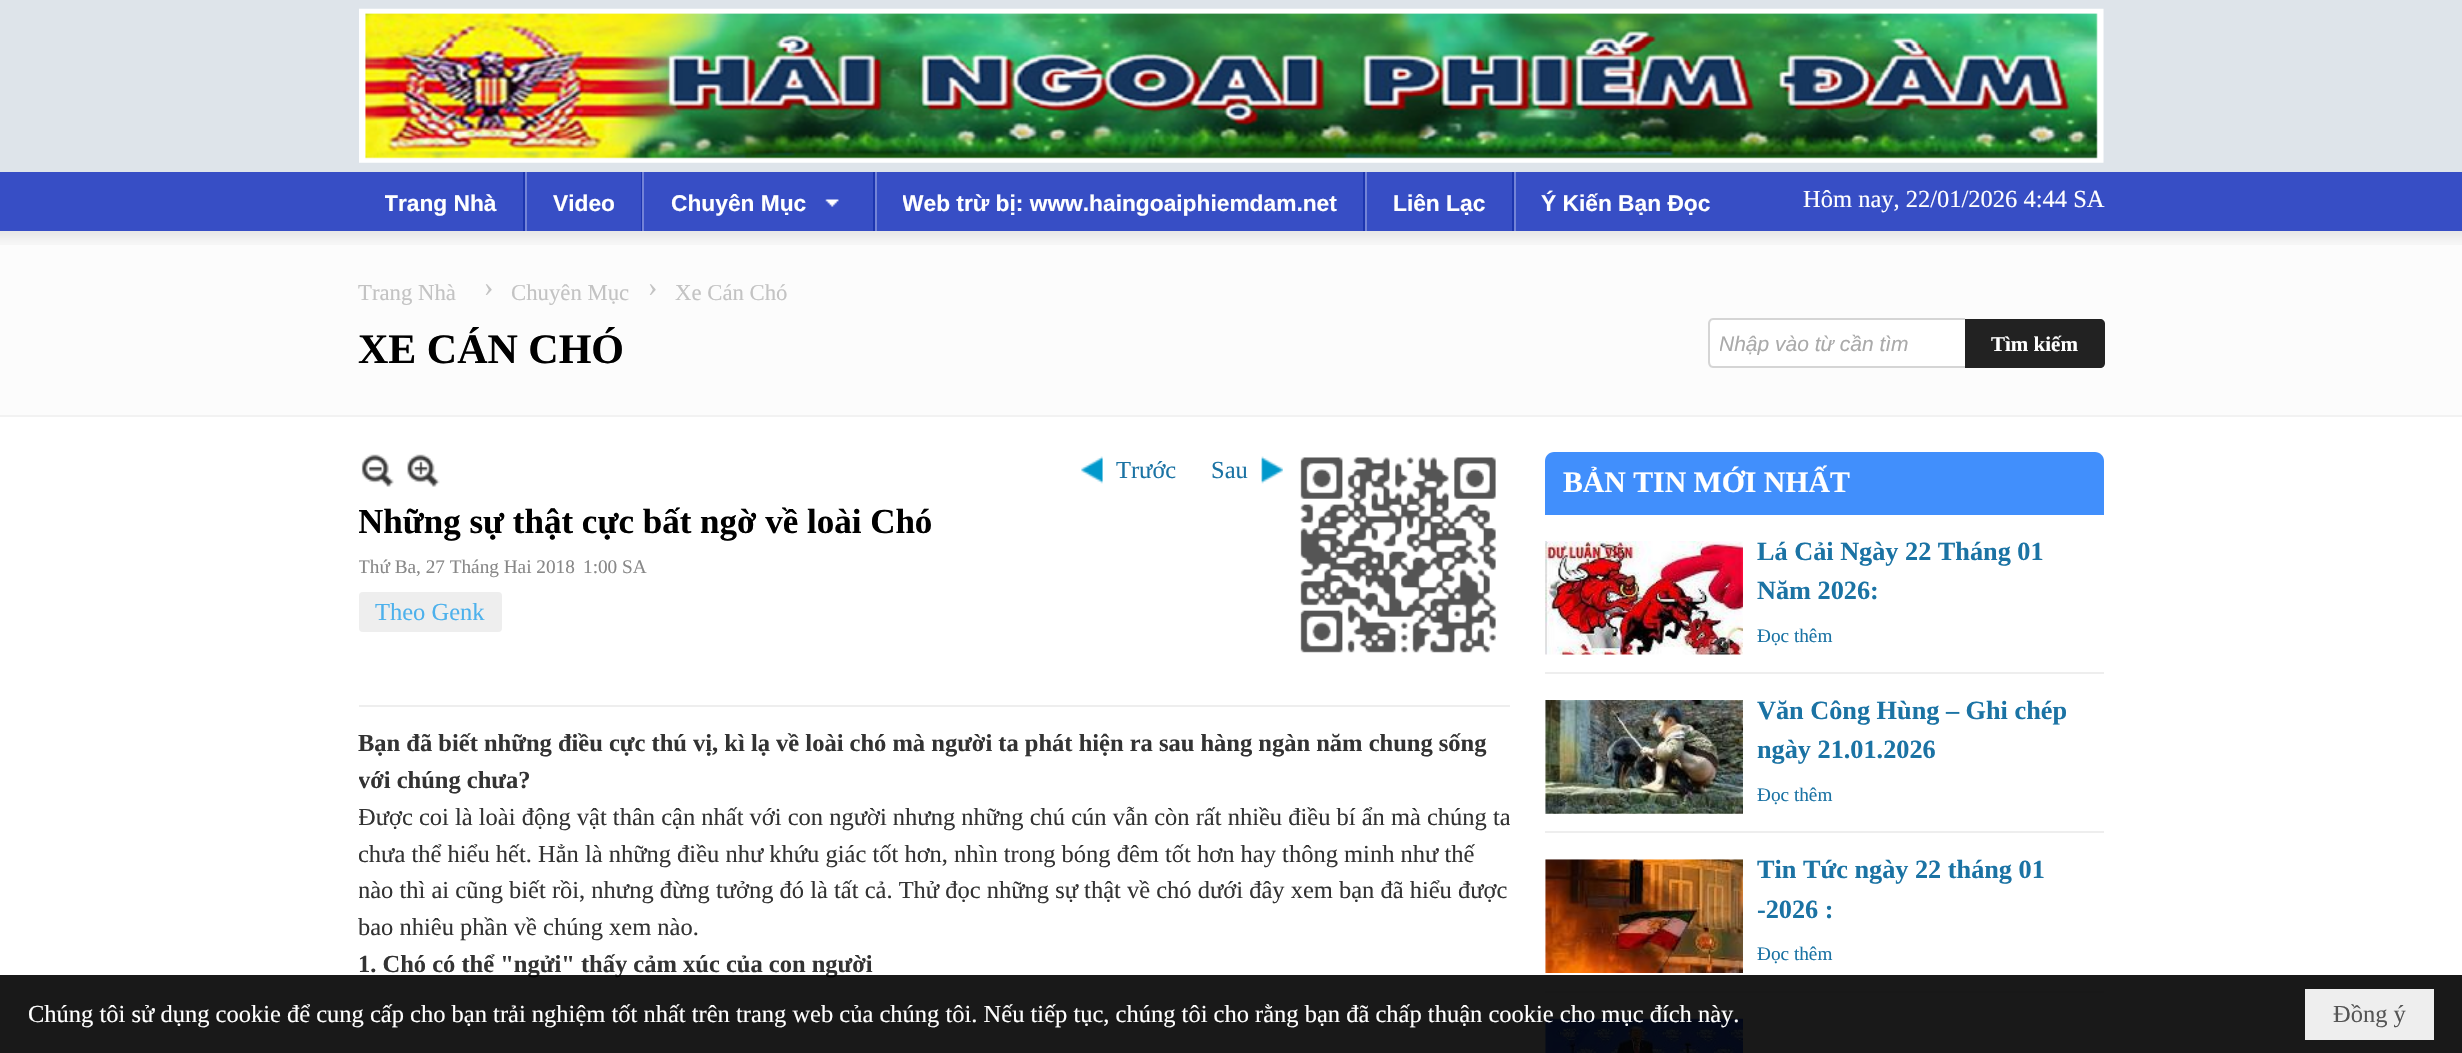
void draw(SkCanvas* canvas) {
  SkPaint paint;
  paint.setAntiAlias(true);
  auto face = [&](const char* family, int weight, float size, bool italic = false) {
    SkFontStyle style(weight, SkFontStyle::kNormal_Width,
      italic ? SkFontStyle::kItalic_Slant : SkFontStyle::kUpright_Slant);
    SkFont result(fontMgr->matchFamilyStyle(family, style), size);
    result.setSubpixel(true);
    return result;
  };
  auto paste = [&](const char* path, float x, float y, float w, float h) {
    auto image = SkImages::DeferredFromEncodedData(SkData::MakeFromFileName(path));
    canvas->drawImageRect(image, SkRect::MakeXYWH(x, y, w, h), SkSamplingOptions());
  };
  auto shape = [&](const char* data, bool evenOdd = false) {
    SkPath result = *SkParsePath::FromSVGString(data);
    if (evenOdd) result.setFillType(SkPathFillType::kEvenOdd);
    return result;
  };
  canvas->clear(0xffffffff);
  paint.setColor(0xffdee4ea);
  canvas->drawRect(SkRect::MakeXYWH(0, 0, 2462, 172), paint);
  paste("img/1.png", 359, 8, 1745, 155);
  {
    const struct { float x, y, w, h; SkColor color; } items[] = {
      {0, 172, 2462, 59, 0xff374ec5},
      {523, 172, 2, 59, 0xff1d35af},
      {641, 172, 1, 59, 0xff1d35af},
      {525, 172, 2, 59, 0xff7383d7},
      {873, 172, 2, 59, 0xff1d35af},
      {642, 172, 2, 59, 0xff7383d7},
    };
    for (auto [x, y, w, h, color] : items) {
      paint.setColor(color);
      canvas->drawRect(SkRect::MakeXYWH(x, y, w, h), paint);
    }
  }
  paste("img/2.png", 825, 199, 14, 8);
  {
    const struct { float x, y, w, h; SkColor color; } items[] = {
      {1363, 172, 2, 59, 0xff1d35af},
      {875, 172, 2, 59, 0xff7383d7},
      {1512, 172, 2, 59, 0xff1d35af},
      {1365, 172, 2, 59, 0xff7383d7},
      {1514, 172, 2, 59, 0xff7383d7},
      {0, 245, 2462, 170, 0xfffcfcfc},
    };
    for (auto [x, y, w, h, color] : items) {
      paint.setColor(color);
      canvas->drawRect(SkRect::MakeXYWH(x, y, w, h), paint);
    }
  }
  paste("img/3.png", 0, 231, 2462, 14);
  paint.setColor(0xfff2f2f2);
  canvas->drawRect(SkRect::MakeXYWH(0, 415, 2462, 2), paint);
  paint.setColor(0xffffffff);
  canvas->drawPath(shape("M1714 320H1965V366H1714C1712 366 1710 364 1710 362V324C1710 322 1712 320 1714 320Z"), paint);
  paint.setColor(0xffd5d5d5);
  canvas->drawPath(shape("M1713 318H1965V368H1713C1710 368 1708 365 1708 362V324C1708 321 1710 318 1713 318ZM1713 320H1965V366H1713C1711 366 1710 364 1710 362V324C1710 322 1711 320 1713 320Z", true), paint);
  paint.setColor(0xff222222);
  canvas->drawPath(shape("M1965 319H2100C2103 319 2105 321 2105 324V363C2105 366 2103 368 2100 368H1965Z"), paint);
  paint.setColor(0xffeeeeee);
  canvas->drawRect(SkRect::MakeXYWH(359, 705, 1151, 2), paint);
  paste("img/4.png", 361, 454, 33, 33);
  paste("img/5.png", 407, 454, 33, 33);
  paste("img/6.png", 1081, 456, 22, 28);
  paste("img/7.png", 1261, 456, 22, 28);
  paste("img/8.png", 1300, 457, 196, 196);
  canvas->drawRoundRect(SkRect::MakeXYWH(359, 592, 143, 40), 4, 4, paint);
  paint.setColor(0xff418ffc);
  canvas->drawPath(shape("M1554 452H2095C2100 452 2104 456 2104 461V515H1545V461C1545 456 1549 452 1554 452Z"), paint);
  paint.setColor(0xffeeeeee);
  canvas->drawRect(SkRect::MakeXYWH(1545, 672, 559, 2), paint);
  paste("img/9.png", 1545, 541, 198, 114);
  canvas->drawRect(SkRect::MakeXYWH(1545, 831, 559, 2), paint);
  paste("img/10.png", 1545, 700, 198, 114);
  canvas->drawRect(SkRect::MakeXYWH(1545, 991, 559, 2), paint);
  paste("img/11.png", 1545, 859, 198, 114);
  paste("img/12.png", 1545, 1018, 198, 35);
  canvas->save();
  canvas->clipRect(SkRect::MakeXYWH(385, 182, 112, 39));
  auto f0 = face("Liberation Sans", 700, 22.75f);
  paint.setColor(0xffffffff);
  canvas->drawString("Trang Nhà", 384, 211, f0, paint);
  canvas->restore();
  canvas->drawString("Video", 553, 211, f0, paint);
  canvas->drawString("Chuyên Mục", 671, 211, f0, paint);
  canvas->save();
  canvas->clipRect(SkRect::MakeXYWH(903, 182, 434, 39));
  canvas->drawString("Web trừ bị: www.haingoaiphiemdam.net", 902, 211, f0, paint);
  canvas->restore();
  canvas->drawString("Liên Lạc", 1393, 211, f0, paint);
  canvas->drawString("Ý Kiến Bạn Đọc", 1541, 211, f0, paint);
  auto f1 = face("Liberation Serif", 400, 24.5f);
  canvas->drawString("Hôm nay, 22/01/2026 4:44 SA", 1803, 207, f1, paint);
  auto f2 = face("Liberation Serif", 400, 22.75f);
  paint.setColor(0xffc3c3c3);
  canvas->drawString("Trang Nhà", 358, 300, f2, paint);
  auto f3 = face("Liberation Serif", 400, 28);
  canvas->drawString("›", 484, 296, f3, paint);
  canvas->drawString("Chuyên Mục", 511, 300, f2, paint);
  canvas->drawString("›", 648, 296, f3, paint);
  canvas->drawString("Xe Cán Chó", 675, 300, f2, paint);
  auto f4 = face("Liberation Serif", 700, 42);
  paint.setColor(0xff000000);
  canvas->drawString("XE CÁN CHÓ", 358, 363, f4, paint);
  canvas->save();
  canvas->clipRect(SkRect::MakeXYWH(1720, 331, 235, 24));
  auto f5 = face("Liberation Sans", 400, 21, true);
  paint.setColor(0xffaaaaaa);
  canvas->drawString("Nhập vào từ cần tìm", 1719, 351, f5, paint);
  canvas->restore();
  auto f6 = face("Liberation Serif", 700, 21);
  paint.setColor(0xffffffff);
  canvas->drawString("Tìm kiếm", 1991, 351, f6, paint);
  paint.setColor(0xff1b73a4);
  canvas->drawString("Trước", 1116, 478, f1, paint);
  canvas->drawString("Sau", 1211, 478, f1, paint);
  canvas->save();
  canvas->clipRect(SkRect::MakeXYWH(359, 452, 1151, 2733));
  auto f7 = face("Liberation Serif", 700, 35);
  paint.setColor(0xff000000);
  canvas->drawString("Những sự thật cực bất ngờ về loài Chó", 358, 533, f7, paint);
  auto f8 = face("Liberation Serif", 400, 19.25f);
  paint.setColor(0xff888888);
  canvas->drawString("Thứ Ba, 27 Tháng Hai 2018", 358, 573, f8, paint);
  canvas->restore();
  canvas->drawString("1:00 SA", 583, 573, f8, paint);
  paint.setColor(0xff4db1ec);
  canvas->drawString("Theo Genk", 375, 620, f1, paint);
  auto f9 = face("Liberation Serif", 700, 24.5f);
  paint.setColor(0xff333333);
  canvas->drawString("Bạn đã biết những điều cực thú vị, kì lạ về loài chó mà người ta phát hiện ra sau hàng ngàn năm chung sống", 358, 751, f9, paint);
  canvas->save();
  canvas->clipRect(SkRect::MakeXYWH(359, 452, 1151, 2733));
  canvas->drawString("với chúng chưa?", 358, 788, f9, paint);
  {
    const struct { const char* s; float x, y; } items[] = {
      {"Được coi là loài động vật thân cận nhất với con người nhưng những chú cún vẫn còn rất nhiều điều bí ẩn mà chúng ta", 358, 825},
      {"chưa thể hiểu hết. Hẳn là những điều như khứu giác tốt hơn, nhìn trong bóng đêm tốt hơn hay thông minh như thế", 358, 862},
      {"nào thì ai cũng biết rồi, nhưng đừng tưởng đó là tất cả. Thử đọc những sự thật về chó dưới đây xem bạn đã hiểu được", 358, 898},
    };
    for (auto [s, x, y] : items) {
      canvas->drawString(s, x, y, f1, paint);
    }
  }
  canvas->restore();
  canvas->drawString("bao nhiêu phần về chúng xem nào.", 358, 935, f1, paint);
  canvas->drawString("1. Chó có thể \"ngửi\" thấy cảm xúc của con người", 358, 972, f9, paint);
  auto f10 = face("Liberation Serif", 700, 29.75f);
  paint.setColor(0xffffffff);
  canvas->drawString("BẢN TIN MỚI NHẤT", 1563, 492, f10, paint);
  auto f11 = face("Liberation Serif", 700, 26.25f);
  paint.setColor(0xff1b73a4);
  canvas->drawString("Lá Cải Ngày 22 Tháng 01", 1757, 560, f11, paint);
  canvas->drawString("Năm 2026:", 1757, 599, f11, paint);
  canvas->drawString("Đọc thêm", 1757, 642, f8, paint);
  canvas->drawString("Văn Công Hùng – Ghi chép", 1757, 719, f11, paint);
  canvas->drawString("ngày 21.01.2026", 1757, 758, f11, paint);
  canvas->drawString("Đọc thêm", 1757, 801, f8, paint);
  canvas->drawString("Tin Tức ngày 22 tháng 01", 1757, 878, f11, paint);
  canvas->drawString("-2026 :", 1757, 918, f11, paint);
  canvas->drawString("Đọc thêm", 1757, 960, f8, paint);
  paint.setColor(0xe6000000);
  canvas->drawRect(SkRect::MakeXYWH(0, 975, 2462, 78), paint);
  paint.setColor(0xffffffff);
  canvas->drawString("Chúng tôi sử dụng cookie để cung cấp cho bạn trải nghiệm tốt nhất trên trang web của chúng tôi. Nếu tiếp tục, chúng tôi cho rằng bạn đã chấp thuận cookie cho mục đích này.", 28, 1022, f1, paint);
  paint.setColor(0xffeeeeee);
  canvas->drawRect(SkRect::MakeXYWH(2305, 989, 129, 51), paint);
  paint.setColor(0xff555555);
  canvas->drawString("Đồng ý", 2333, 1022, f1, paint);
}
